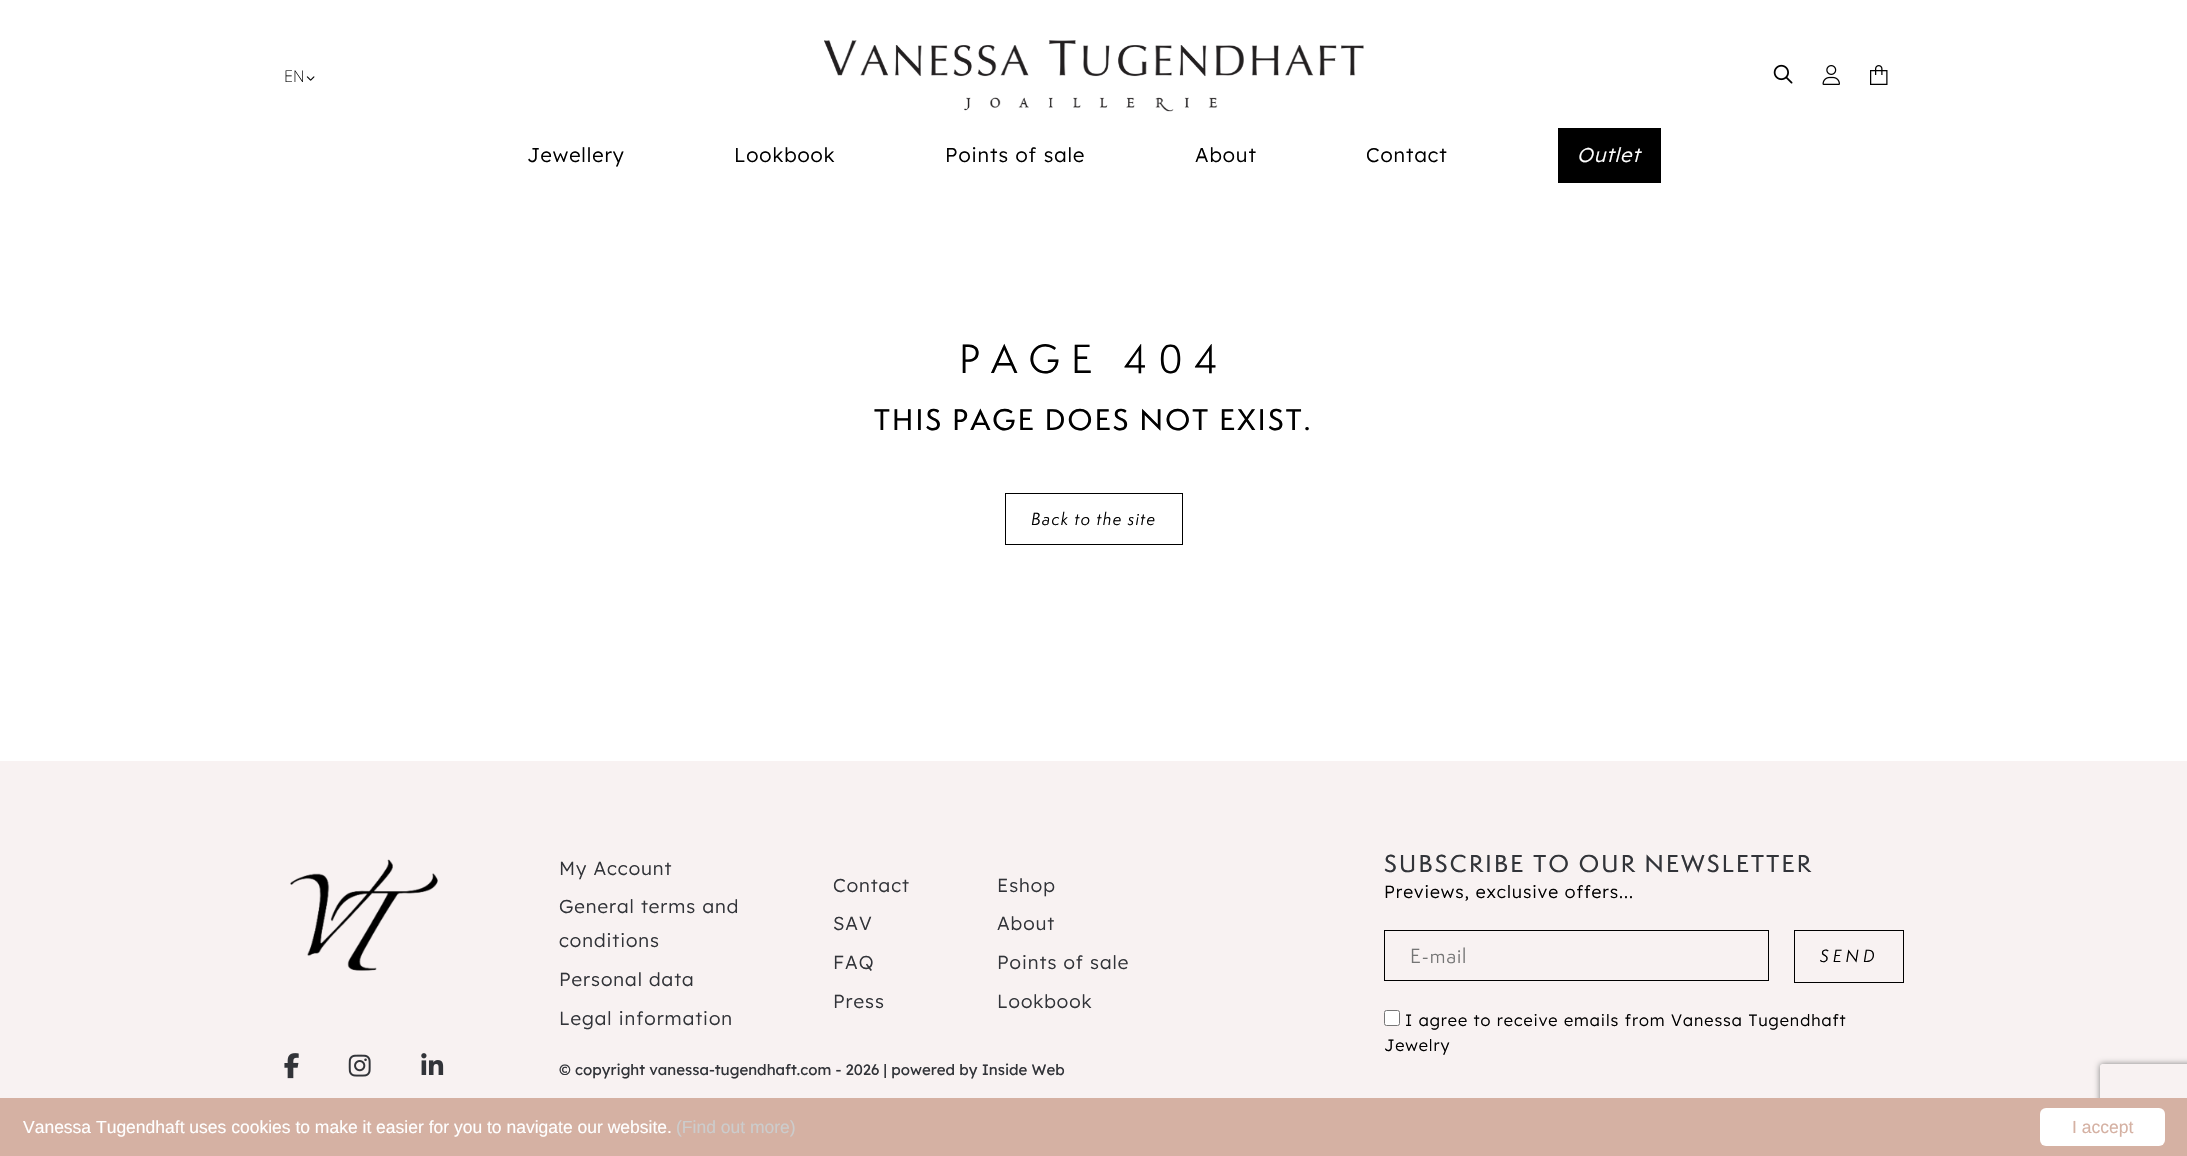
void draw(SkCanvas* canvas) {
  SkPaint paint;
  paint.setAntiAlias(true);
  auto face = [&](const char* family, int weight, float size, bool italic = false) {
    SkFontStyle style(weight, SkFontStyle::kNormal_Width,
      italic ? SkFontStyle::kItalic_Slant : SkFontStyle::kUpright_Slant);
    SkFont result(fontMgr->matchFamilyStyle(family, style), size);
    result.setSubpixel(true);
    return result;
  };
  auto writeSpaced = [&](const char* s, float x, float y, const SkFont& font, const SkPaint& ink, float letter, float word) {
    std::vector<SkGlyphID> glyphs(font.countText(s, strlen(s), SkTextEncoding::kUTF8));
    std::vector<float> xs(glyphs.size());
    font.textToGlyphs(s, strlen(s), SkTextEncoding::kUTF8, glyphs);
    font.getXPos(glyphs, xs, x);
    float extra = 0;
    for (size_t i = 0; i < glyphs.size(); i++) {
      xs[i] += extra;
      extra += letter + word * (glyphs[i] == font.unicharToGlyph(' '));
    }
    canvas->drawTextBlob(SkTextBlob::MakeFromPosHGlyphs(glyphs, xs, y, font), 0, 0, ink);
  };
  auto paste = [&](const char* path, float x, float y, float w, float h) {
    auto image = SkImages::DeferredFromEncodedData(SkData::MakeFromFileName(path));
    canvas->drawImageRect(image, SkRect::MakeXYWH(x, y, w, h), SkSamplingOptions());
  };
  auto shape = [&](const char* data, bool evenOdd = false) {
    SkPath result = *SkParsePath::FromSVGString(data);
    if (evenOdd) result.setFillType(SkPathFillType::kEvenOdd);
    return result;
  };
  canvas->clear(0xffffffff);
  paste("img/1.png", 306, 76, 9, 5);
  paste("img/2.png", 824, 40, 540, 72);
  paste("img/3.png", 1773, 64, 20, 20);
  paste("img/4.png", 1822, 65, 18, 20);
  paste("img/5.png", 1870, 65, 18, 20);
  paint.setColor(0xff000000);
  canvas->drawRect(SkRect::MakeXYWH(1558, 128, 103, 55), paint);
  paint.setStroke(true);
  paint.setStrokeWidth(1);
  canvas->drawRect(SkRect::MakeXYWH(1005.5f, 493.5f, 177, 51), paint);
  paint.setStroke(false);
  paint.setColor(0xfff8f2f2);
  canvas->drawRect(SkRect::MakeXYWH(0, 761, 2187, 337), paint);
  paste("img/6.png", 290, 859, 148, 112);
  paste("img/7.png", 284, 1053, 15, 26);
  paste("img/8.png", 348, 1054, 23, 23);
  paste("img/9.png", 421, 1053, 23, 22);
  paint.setStroke(true);
  paint.setColor(0xff000000);
  canvas->drawRect(SkRect::MakeXYWH(1384.5f, 930.5f, 384, 50), paint);
  canvas->drawRect(SkRect::MakeXYWH(1794.5f, 930.5f, 109, 52), paint);
  paint.setStroke(false);
  paint.setColor(0xffffffff);
  canvas->drawRoundRect(SkRect::MakeXYWH(1384.5f, 1010.5f, 15, 15), 2, 2, paint);
  paint.setStroke(true);
  paint.setColor(0xff767676);
  canvas->drawRoundRect(SkRect::MakeXYWH(1384.5f, 1010.5f, 15, 15), 2, 2, paint);
  canvas->save();
  canvas->clipPath(shape("M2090 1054H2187V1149H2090ZM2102.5 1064H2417.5C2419 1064 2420 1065 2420 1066.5V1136.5C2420 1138 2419 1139 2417.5 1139H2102.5C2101 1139 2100 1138 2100 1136.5V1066.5C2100 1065 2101 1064 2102.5 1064Z", true), true);
  paint.setStroke(false);
  paint.setColor(0xff808080);
  paint.setMaskFilter(SkMaskFilter::MakeBlur(kNormal_SkBlurStyle, 3));
  canvas->drawRoundRect(SkRect::MakeXYWH(2100, 1064, 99, 75), 2.5f, 2.5f, paint);
  paint.setMaskFilter(nullptr);
  canvas->restore();
  paint.setColor(0xffd5b1a3);
  canvas->drawRect(SkRect::MakeXYWH(0, 1098, 2187, 58), paint);
  paint.setColor(0xffffffff);
  canvas->drawRoundRect(SkRect::MakeXYWH(2040, 1108, 125, 38), 6, 6, paint);
  auto f0 = face("Noto Sans", 200, 16.25f);
  paint.setColor(0xff000000);
  canvas->drawString("EN", 284, 82, f0, paint);
  auto f1 = face("Lexend Deca", 300, 20);
  {
    const struct { const char* s; float x, y; } items[] = {
      {"Jewellery", 527, 162},
      {"Lookbook", 734, 162},
      {"Points of sale", 945, 162},
      {"About", 1195, 162},
      {"Contact", 1366, 162},
    };
    for (auto [s, x, y] : items) {
      writeSpaced(s, x, y, f1, paint, 0.95f, 0);
    }
  }
  auto f2 = face("Lexend Deca", 300, 20, true);
  paint.setColor(0xffffffff);
  writeSpaced("Outlet", 1577, 162, f2, paint, 0.95f, 0);
  auto f3 = face("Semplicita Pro", 400, 37.5f);
  paint.setColor(0xff000000);
  writeSpaced("PAGE 404", 959, 373, f3, paint, 11.25f, 0);
  auto f4 = face("Semplicita Pro", 500, 27.5f);
  writeSpaced("THIS PAGE DOES NOT EXIST.", 874, 430, f4, paint, 2.25f, 0);
  auto f5 = face("Semplicita Pro", 400, 16.25f, true);
  writeSpaced("Back to the site", 1031, 525, f5, paint, 1.25f, 0);
  auto f6 = face("Lexend Deca", 300, 18.75f);
  paint.setColor(0xff323439);
  {
    const struct { const char* s; float x, y; } items[] = {
      {"My Account", 559, 875},
      {"General terms and", 559, 913},
      {"conditions", 559, 947},
      {"Personal data", 559, 986},
      {"Legal information", 559, 1025},
      {"Contact", 833, 892},
      {"SAV", 833, 930},
      {"FAQ", 833, 969},
      {"Press", 833, 1008},
      {"Eshop", 997, 892},
      {"About", 997, 930},
      {"Points of sale", 997, 969},
      {"Lookbook", 997, 1008},
    };
    for (auto [s, x, y] : items) {
      writeSpaced(s, x, y, f6, paint, 0.95f, 0);
    }
  }
  auto f7 = face("Lexend Deca", 400, 15);
  canvas->drawString("© copyright vanessa-tugendhaft.com - 2026 | powered by Inside Web", 559, 1075, f7, paint);
  auto f8 = face("Semplicita Pro", 500, 22.5f);
  writeSpaced("SUBSCRIBE TO OUR NEWSLETTER", 1384, 872, f8, paint, 2.25f, 0);
  auto f9 = face("Lexend Deca", 300, 17.5f);
  paint.setColor(0xff000000);
  writeSpaced("Previews, exclusive offers...", 1384, 898, f9, paint, 0.95f, 0);
  auto f10 = face("Semplicita Pro", 400, 18.75f);
  paint.setColor(0xff757575);
  writeSpaced("E-mail", 1410, 963, f10, paint, 0.95f, 0);
  paint.setColor(0xff000000);
  writeSpaced("SEND", 1820, 962, f5, paint, 4, 0);
  auto f11 = face("Lexend Deca", 300, 16.25f);
  writeSpaced("I agree to receive emails from Vanessa Tugendhaft", 1405, 1026, f11, paint, 0.95f, 0);
  writeSpaced("Jewelry", 1384, 1051, f11, paint, 0.95f, 0);
  auto f12 = face("Liberation Sans", 400, 17.5f);
  paint.setColor(0xffffffff);
  canvas->drawString("Vanessa Tugendhaft uses cookies to make it easier for you to navigate our website.", 23, 1133, f12, paint);
  paint.setColor(0xffcccccc);
  canvas->drawString("(Find out more)", 676, 1133, f12, paint);
  paint.setColor(0xffd5b1a3);
  canvas->drawString("I accept", 2072, 1133, f12, paint);
}
